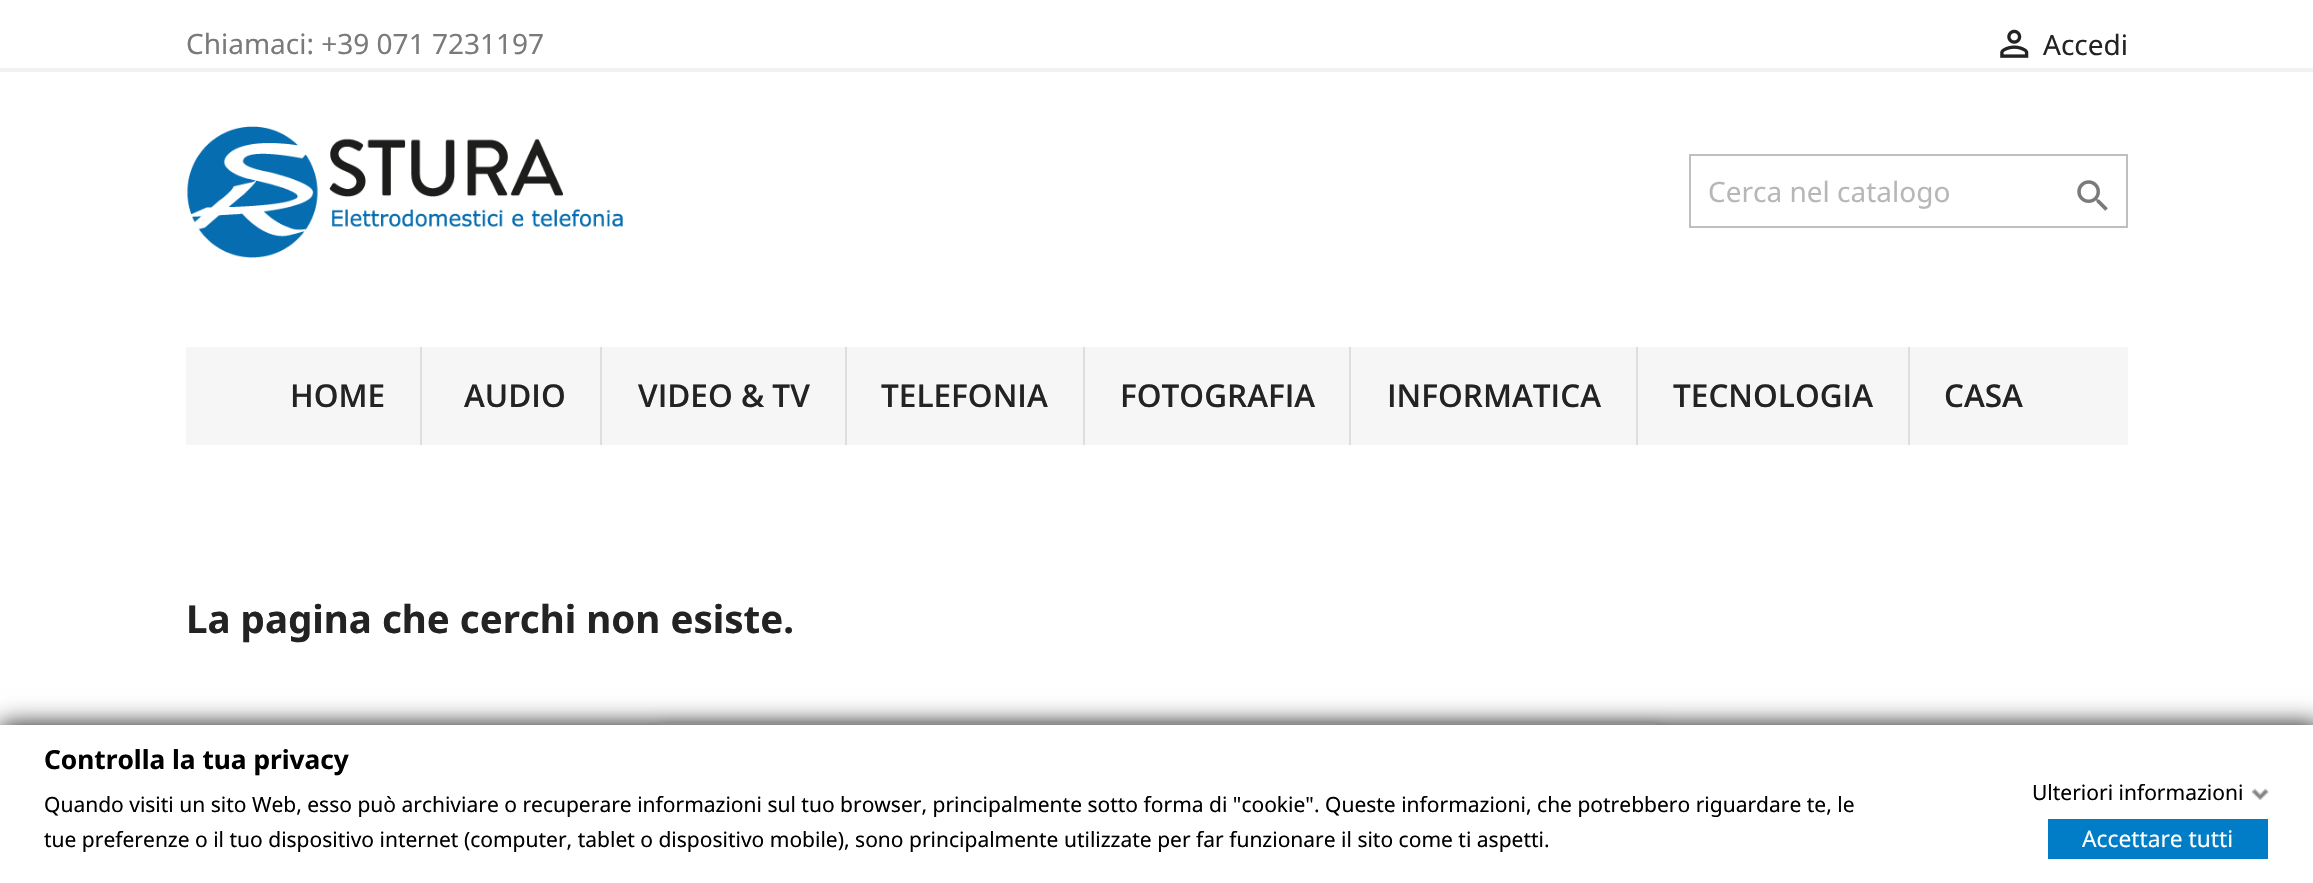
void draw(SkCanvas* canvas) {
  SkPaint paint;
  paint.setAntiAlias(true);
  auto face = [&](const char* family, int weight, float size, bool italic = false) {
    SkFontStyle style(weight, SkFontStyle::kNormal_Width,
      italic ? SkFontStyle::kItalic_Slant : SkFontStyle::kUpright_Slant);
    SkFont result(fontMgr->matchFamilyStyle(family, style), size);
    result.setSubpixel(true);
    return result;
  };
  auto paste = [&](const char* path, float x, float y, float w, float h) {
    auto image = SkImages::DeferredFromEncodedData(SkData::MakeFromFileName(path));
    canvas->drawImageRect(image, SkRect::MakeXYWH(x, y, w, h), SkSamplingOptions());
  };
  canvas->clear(0xffffffff);
  paint.setColor(0xfff1f1f1);
  canvas->drawRect(SkRect::MakeXYWH(0, 68, 2313, 4), paint);
  paste("img/1.png", 2000, 29, 29, 29);
  paste("img/2.png", 187, 126, 436, 132);
  paint.setStroke(true);
  paint.setStrokeWidth(2);
  paint.setColor(0xffbfbfbf);
  canvas->drawRect(SkRect::MakeXYWH(1690, 155, 437, 72), paint);
  paste("img/3.png", 2077, 180, 31, 31);
  paint.setStroke(false);
  {
    const struct { float x, y, w, h; SkColor color; } items[] = {
      {186, 347, 1942, 98, 0xfff6f6f6},
      {420, 347, 2, 98, 0xffdedede},
      {600, 347, 2, 98, 0xffdedede},
      {845, 347, 2, 98, 0xffdedede},
      {1083, 347, 2, 98, 0xffdedede},
      {1349, 347, 2, 98, 0xffdedede},
      {1636, 347, 2, 98, 0xffdedede},
      {1908, 347, 2, 98, 0xffdedede},
    };
    for (auto [x, y, w, h, color] : items) {
      paint.setColor(color);
      canvas->drawRect(SkRect::MakeXYWH(x, y, w, h), paint);
    }
  }
  paint.setColor(0x33000000);
  paint.setMaskFilter(SkMaskFilter::MakeBlur(kNormal_SkBlurStyle, 7));
  canvas->drawRect(SkRect::MakeXYWH(662, 726, 997, 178), paint);
  paint.setMaskFilter(nullptr);
  paint.setColor(0xffffffff);
  canvas->drawRect(SkRect::MakeXYWH(658, 723, 998, 2), paint);
  paint.setColor(0xff121212);
  paint.setMaskFilter(SkMaskFilter::MakeBlur(kNormal_SkBlurStyle, 12));
  canvas->drawRect(SkRect::MakeXYWH(0, 725, 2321, 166), paint);
  paint.setMaskFilter(nullptr);
  paint.setColor(0xffffffff);
  canvas->drawRect(SkRect::MakeXYWH(0, 725, 2313, 158), paint);
  paste("img/4.png", 2252, 788, 17, 12);
  paint.setColor(0xff007dc6);
  canvas->drawRect(SkRect::MakeXYWH(2048, 819, 220, 40), paint);
  auto f0 = face("Noto Sans", 400, 28);
  paint.setColor(0xff7a7a7a);
  canvas->drawString("Chiamaci: +39 071 7231197", 186, 54, f0, paint);
  paint.setColor(0xff232323);
  canvas->drawString("Accedi", 2043, 55, f0, paint);
  paint.setColor(0xffb7b7b7);
  canvas->drawString("Cerca nel catalogo", 1708, 202, f0, paint);
  auto f1 = face("Open Sans", 600, 31.5f);
  paint.setColor(0xff232323);
  {
    const struct { const char* s; float x, y; } items[] = {
      {"HOME", 290, 407},
      {"AUDIO", 464, 407},
      {"VIDEO & TV", 638, 407},
      {"TELEFONIA", 881, 407},
      {"FOTOGRAFIA", 1120, 407},
      {"INFORMATICA", 1387, 407},
      {"TECNOLOGIA", 1673, 407},
      {"CASA", 1944, 407},
    };
    for (auto [s, x, y] : items) {
      canvas->drawString(s, x, y, f1, paint);
    }
  }
  auto f2 = face("Noto Sans", 700, 38.5f);
  canvas->drawString("La pagina che cerchi non esiste.", 186, 633, f2, paint);
  auto f3 = face("Noto Sans", 700, 26.25f);
  paint.setColor(0xff000000);
  canvas->drawString("Controlla la tua privacy", 44, 769, f3, paint);
  auto f4 = face("Noto Sans", 400, 21);
  {
    const struct { const char* s; float x, y; } items[] = {
      {"Quando visiti un sito Web, esso può archiviare o recuperare informazioni sul tuo browser, principalmente sotto forma di \"cookie\". Queste informazioni, che potrebbero riguardare te, le", 44, 812},
      {"tue preferenze o il tuo dispositivo internet (computer, tablet o dispositivo mobile), sono principalmente utilizzate per far funzionare il sito come ti aspetti.", 44, 847},
      {"Ulteriori informazioni", 2032, 800},
    };
    for (auto [s, x, y] : items) {
      canvas->drawString(s, x, y, f4, paint);
    }
  }
  auto f5 = face("Noto Sans", 400, 22.75f);
  paint.setColor(0xffffffff);
  canvas->drawString("Accettare tutti", 2082, 847, f5, paint);
}
